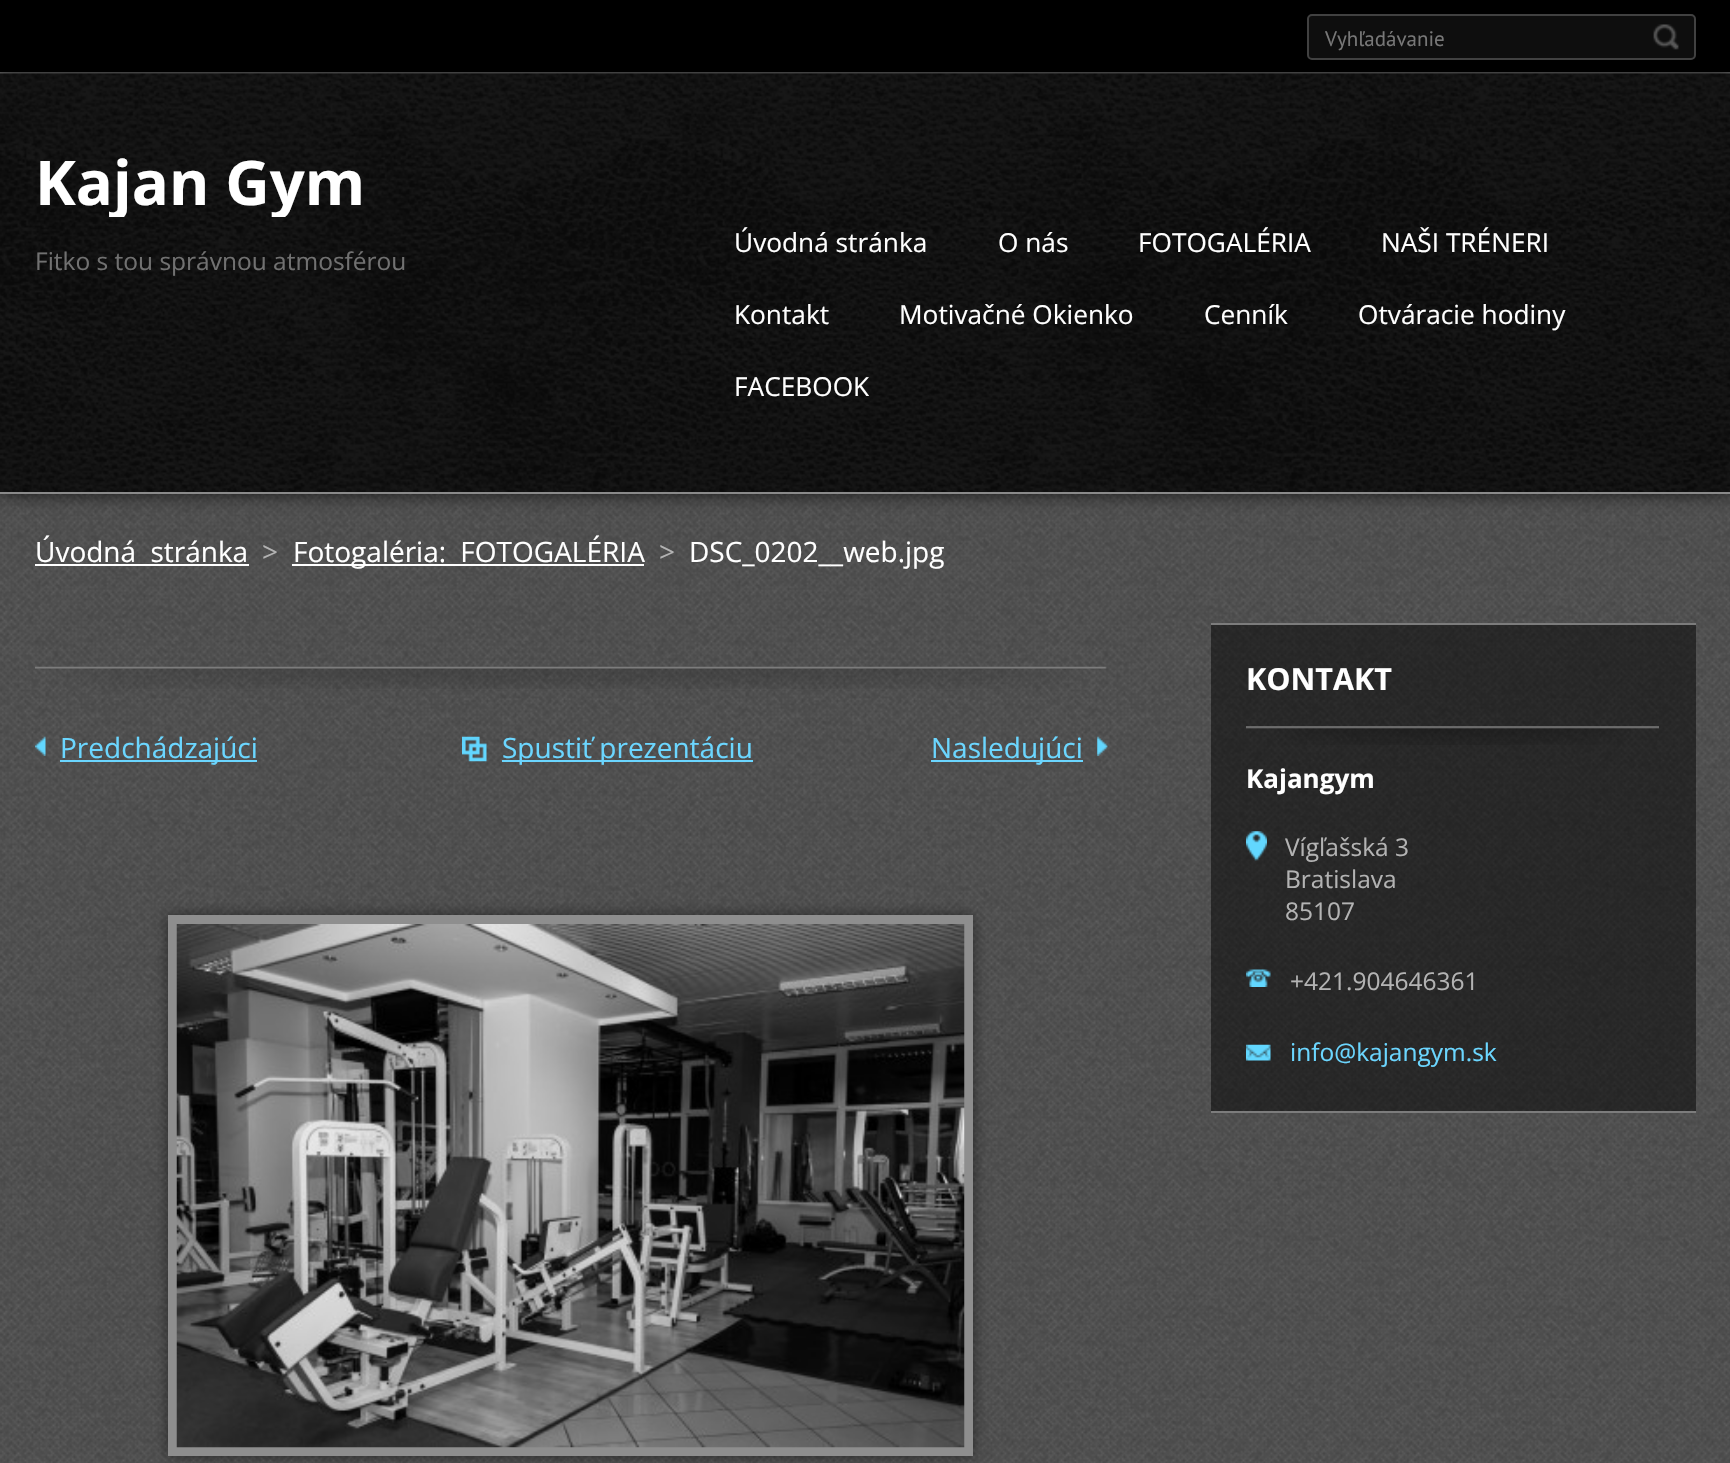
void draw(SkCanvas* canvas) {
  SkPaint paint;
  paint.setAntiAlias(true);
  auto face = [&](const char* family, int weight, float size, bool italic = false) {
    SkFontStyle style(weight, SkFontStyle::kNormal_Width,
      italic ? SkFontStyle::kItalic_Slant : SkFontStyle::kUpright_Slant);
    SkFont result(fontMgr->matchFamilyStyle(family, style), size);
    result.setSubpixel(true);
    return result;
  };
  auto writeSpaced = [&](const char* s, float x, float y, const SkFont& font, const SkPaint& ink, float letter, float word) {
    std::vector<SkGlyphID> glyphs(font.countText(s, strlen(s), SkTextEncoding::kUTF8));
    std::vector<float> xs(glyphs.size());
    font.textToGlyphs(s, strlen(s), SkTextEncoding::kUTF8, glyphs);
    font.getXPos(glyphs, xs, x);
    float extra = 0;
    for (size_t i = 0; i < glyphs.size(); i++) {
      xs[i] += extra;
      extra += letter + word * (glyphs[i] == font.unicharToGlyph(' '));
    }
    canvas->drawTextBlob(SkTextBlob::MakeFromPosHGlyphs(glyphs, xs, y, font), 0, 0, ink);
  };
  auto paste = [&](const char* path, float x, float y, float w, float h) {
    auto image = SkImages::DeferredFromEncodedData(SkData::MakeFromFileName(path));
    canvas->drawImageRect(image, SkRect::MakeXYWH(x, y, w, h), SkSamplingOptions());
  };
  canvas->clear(0xffffffff);
  paste("img/1.png", 0, 494, 1730, 969);
  paint.setColor(0xff000000);
  canvas->drawRect(SkRect::MakeXYWH(0, 0, 1730, 72), paint);
  paint.setColor(0xff5e5e5e);
  canvas->drawRect(SkRect::MakeXYWH(0, 72, 1730, 2), paint);
  paint.setColor(0xb3000000);
  paint.setMaskFilter(SkMaskFilter::MakeBlur(kNormal_SkBlurStyle, 9));
  canvas->drawRect(SkRect::MakeXYWH(0, 74, 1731, 420), paint);
  paint.setMaskFilter(nullptr);
  paint.setColor(0xff0e0e0e);
  canvas->drawRoundRect(SkRect::MakeXYWH(1308, 15, 387, 44), 4, 4, paint);
  paint.setStroke(true);
  paint.setStrokeWidth(2);
  paint.setColor(0xff414141);
  canvas->drawRoundRect(SkRect::MakeXYWH(1308, 15, 387, 44), 4, 4, paint);
  paste("img/2.png", 1653, 24, 26, 26);
  paste("img/3.png", 0, 73, 1730, 419);
  paint.setStroke(false);
  {
    const struct { float x, y, w, h; SkColor color; } items[] = {
      {0, 492, 1730, 2, 0xff8a8a8a},
      {35, 564, 214, 2, 0xffffffff},
      {292, 564, 352, 2, 0xffffffff},
    };
    for (auto [x, y, w, h, color] : items) {
      paint.setColor(color);
      canvas->drawRect(SkRect::MakeXYWH(x, y, w, h), paint);
    }
  }
  paste("img/4.png", 35, 666, 1072, 23);
  paste("img/5.png", 35, 736, 11, 20);
  paint.setColor(0xff6bd6ff);
  canvas->drawRect(SkRect::MakeXYWH(60, 760, 197, 2), paint);
  paste("img/6.png", 462, 736, 25, 26);
  canvas->drawRect(SkRect::MakeXYWH(502, 760, 251, 2), paint);
  paste("img/7.png", 1097, 736, 11, 20);
  canvas->drawRect(SkRect::MakeXYWH(931, 760, 152, 2), paint);
  paint.setColor(0x80000000);
  paint.setMaskFilter(SkMaskFilter::MakeBlur(kNormal_SkBlurStyle, 7));
  canvas->drawRect(SkRect::MakeXYWH(168, 915, 805, 541), paint);
  paint.setMaskFilter(nullptr);
  paint.setStroke(true);
  paint.setStrokeWidth(9);
  paint.setColor(0xff8e8e8e);
  canvas->drawRect(SkRect::MakeXYWH(172.5f, 919.5f, 796, 532), paint);
  paste("img/8.png", 176, 924, 789, 524);
  paint.setStroke(false);
  {
    const struct { float x, y, w, h; SkColor color; } items[] = {
      {1211, 625, 485, 486, 0x80000000},
      {1211, 623, 485, 2, 0xff7c7c7c},
      {1211, 1111, 485, 2, 0xff7c7c7c},
    };
    for (auto [x, y, w, h, color] : items) {
      paint.setColor(color);
      canvas->drawRect(SkRect::MakeXYWH(x, y, w, h), paint);
    }
  }
  paste("img/9.png", 1246, 726, 413, 19);
  paste("img/10.png", 1246, 831, 21, 30);
  paste("img/11.png", 1246, 969, 25, 18);
  paste("img/12.png", 1246, 1044, 25, 17);
  auto f0 = face("PT Sans", 400, 21);
  paint.setColor(0xff777777);
  canvas->drawString("Vyhľadávanie", 1325, 46, f0, paint);
  canvas->save();
  canvas->clipRect(SkRect::MakeXYWH(35, 144, 331, 73));
  auto f1 = face("Open Sans", 700, 61.5f);
  paint.setColor(0xffffffff);
  canvas->drawString("Kajan Gym", 35, 205, f1, paint);
  canvas->restore();
  auto f2 = face("Open Sans", 400, 24.5f);
  paint.setColor(0xff717171);
  canvas->drawString("Fitko s tou správnou atmosférou", 35, 270, f2, paint);
  auto f3 = face("Open Sans", 400, 26.25f);
  paint.setColor(0xffffffff);
  {
    const struct { const char* s; float x, y; } items[] = {
      {"Úvodná stránka", 734, 252},
      {"O nás", 998, 252},
      {"FOTOGALÉRIA", 1138, 252},
      {"NAŠI TRÉNERI", 1381, 252},
      {"Kontakt", 734, 324},
      {"Motivačné Okienko", 899, 324},
      {"Cenník", 1204, 324},
      {"Otváracie hodiny", 1358, 324},
      {"FACEBOOK", 734, 396},
    };
    for (auto [s, x, y] : items) {
      canvas->drawString(s, x, y, f3, paint);
    }
  }
  auto f4 = face("Open Sans", 400, 28);
  writeSpaced("Úvodná stránka", 35, 562, f4, paint, 0, 7);
  paint.setColor(0xffb3b3b3);
  canvas->drawString(">", 262, 562, f4, paint);
  paint.setColor(0xffffffff);
  writeSpaced("Fotogaléria: FOTOGALÉRIA", 293, 562, f4, paint, 0, 7);
  paint.setColor(0xffb3b3b3);
  canvas->drawString(">", 659, 562, f4, paint);
  paint.setColor(0xffffffff);
  canvas->drawString("DSC_0202__web.jpg", 689, 562, f4, paint);
  paint.setColor(0xff6bd6ff);
  {
    const struct { const char* s; float x, y; } items[] = {
      {"Predchádzajúci", 60, 758},
      {"Spustiť prezentáciu", 502, 758},
      {"Nasledujúci", 931, 758},
    };
    for (auto [s, x, y] : items) {
      canvas->drawString(s, x, y, f4, paint);
    }
  }
  auto f5 = face("Open Sans", 700, 30.5f);
  paint.setColor(0xffffffff);
  canvas->drawString("KONTAKT", 1246, 690, f5, paint);
  auto f6 = face("Open Sans", 700, 26);
  canvas->drawString("Kajangym", 1246, 788, f6, paint);
  paint.setColor(0xffb3b3b3);
  {
    const struct { const char* s; float x, y; } items[] = {
      {"Vígľašská 3", 1285, 856},
      {"Bratislava", 1285, 888},
      {"85107", 1285, 920},
      {"+421.904646361", 1290, 990},
    };
    for (auto [s, x, y] : items) {
      canvas->drawString(s, x, y, f2, paint);
    }
  }
  paint.setColor(0xff6bd6ff);
  canvas->drawString("info@kajangym.sk", 1290, 1061, f2, paint);
}
